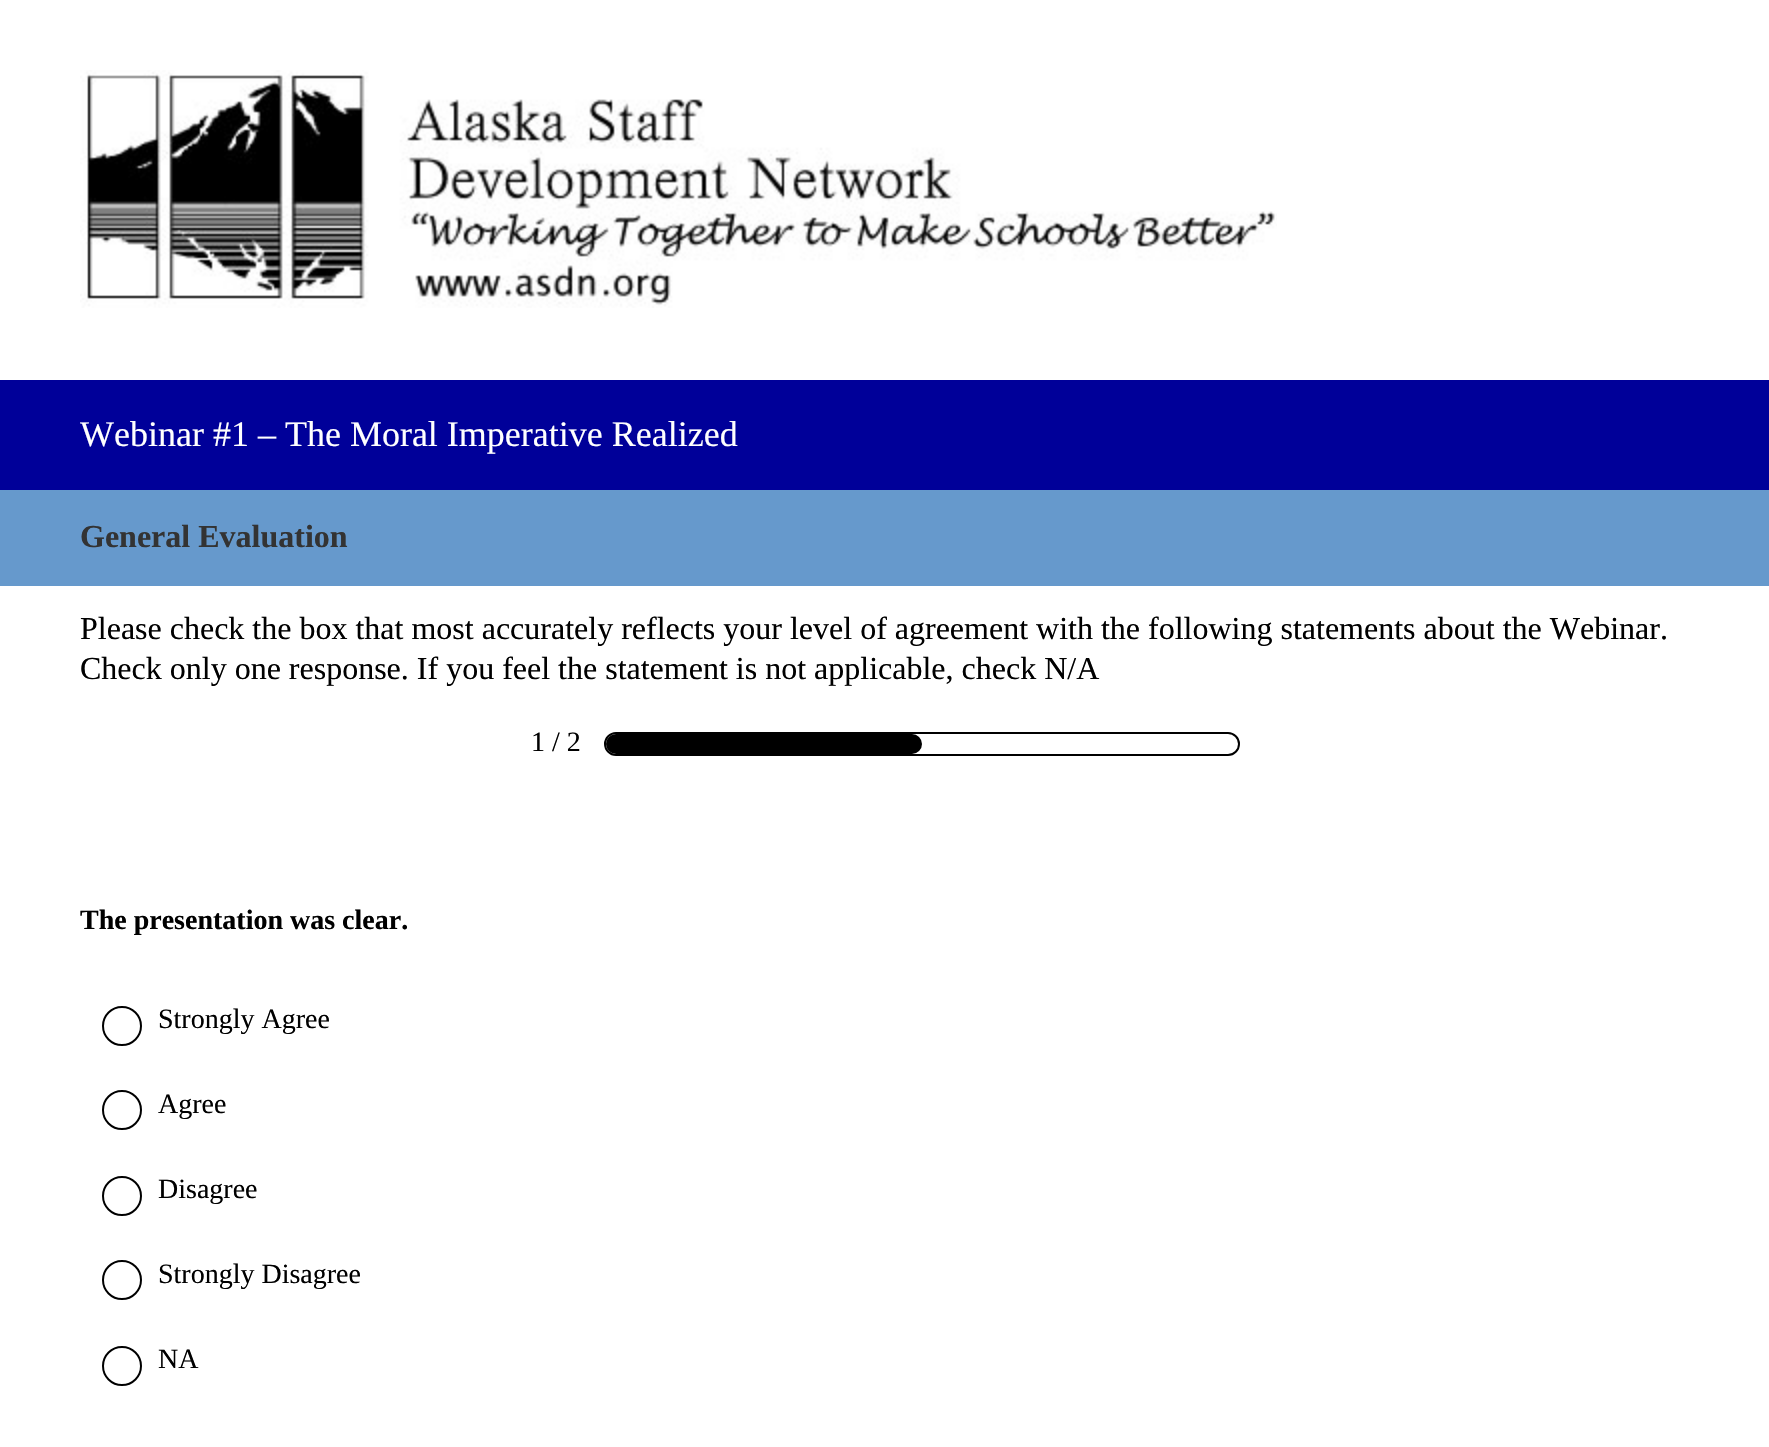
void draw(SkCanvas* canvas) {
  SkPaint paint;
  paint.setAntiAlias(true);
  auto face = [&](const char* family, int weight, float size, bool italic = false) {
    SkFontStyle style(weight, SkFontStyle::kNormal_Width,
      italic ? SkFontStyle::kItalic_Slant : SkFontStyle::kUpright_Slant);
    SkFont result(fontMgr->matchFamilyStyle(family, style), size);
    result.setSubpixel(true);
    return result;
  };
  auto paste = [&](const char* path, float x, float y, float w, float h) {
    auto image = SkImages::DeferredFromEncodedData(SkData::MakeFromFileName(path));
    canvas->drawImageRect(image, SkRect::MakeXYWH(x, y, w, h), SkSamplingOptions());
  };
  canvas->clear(0xffffffff);
  paste("img/1.png", 80, 70, 1197, 238);
  paint.setColor(0xff000099);
  canvas->drawRect(SkRect::MakeXYWH(0, 380, 1769, 110), paint);
  paint.setColor(0xff6699cc);
  canvas->drawRect(SkRect::MakeXYWH(0, 490, 1769, 96), paint);
  paint.setStroke(true);
  paint.setStrokeWidth(2);
  paint.setColor(0xff000000);
  canvas->drawRoundRect(SkRect::MakeXYWH(605, 733, 634, 22), 11, 11, paint);
  paint.setStroke(false);
  canvas->drawRoundRect(SkRect::MakeXYWH(606, 734, 316, 20), 10, 10, paint);
  paint.setStroke(true);
  canvas->drawCircle(122, 1026, 19, paint);
  canvas->drawCircle(122, 1110, 19, paint);
  canvas->drawCircle(122, 1196, 19, paint);
  canvas->drawCircle(122, 1280, 19, paint);
  canvas->drawCircle(122, 1366, 19, paint);
  auto f0 = face("Liberation Serif", 400, 36);
  paint.setStroke(false);
  paint.setColor(0xffffffff);
  canvas->drawString("Webinar #1 – The Moral Imperative Realized", 80, 446, f0, paint);
  auto f1 = face("Liberation Serif", 700, 32);
  paint.setColor(0xff333333);
  canvas->drawString("General Evaluation", 80, 547, f1, paint);
  auto f2 = face("Liberation Serif", 400, 32);
  paint.setColor(0xff000000);
  canvas->drawString("Please check the box that most accurately reflects your level of agreement with the following statements about the Webinar.", 80, 639, f2, paint);
  canvas->drawString("Check only one response. If you feel the statement is not applicable, check N/A", 80, 679, f2, paint);
  auto f3 = face("Liberation Serif", 400, 28);
  canvas->drawString("1 / 2", 531, 751, f3, paint);
  auto f4 = face("Liberation Serif", 700, 28);
  canvas->drawString("The presentation was clear.", 80, 929, f4, paint);
  {
    const struct { const char* s; float x, y; } items[] = {
      {"Strongly Agree", 158, 1028},
      {"Agree", 158, 1113},
      {"Disagree", 158, 1198},
      {"Strongly Disagree", 158, 1283},
      {"NA", 158, 1368},
    };
    for (auto [s, x, y] : items) {
      canvas->drawString(s, x, y, f3, paint);
    }
  }
}
